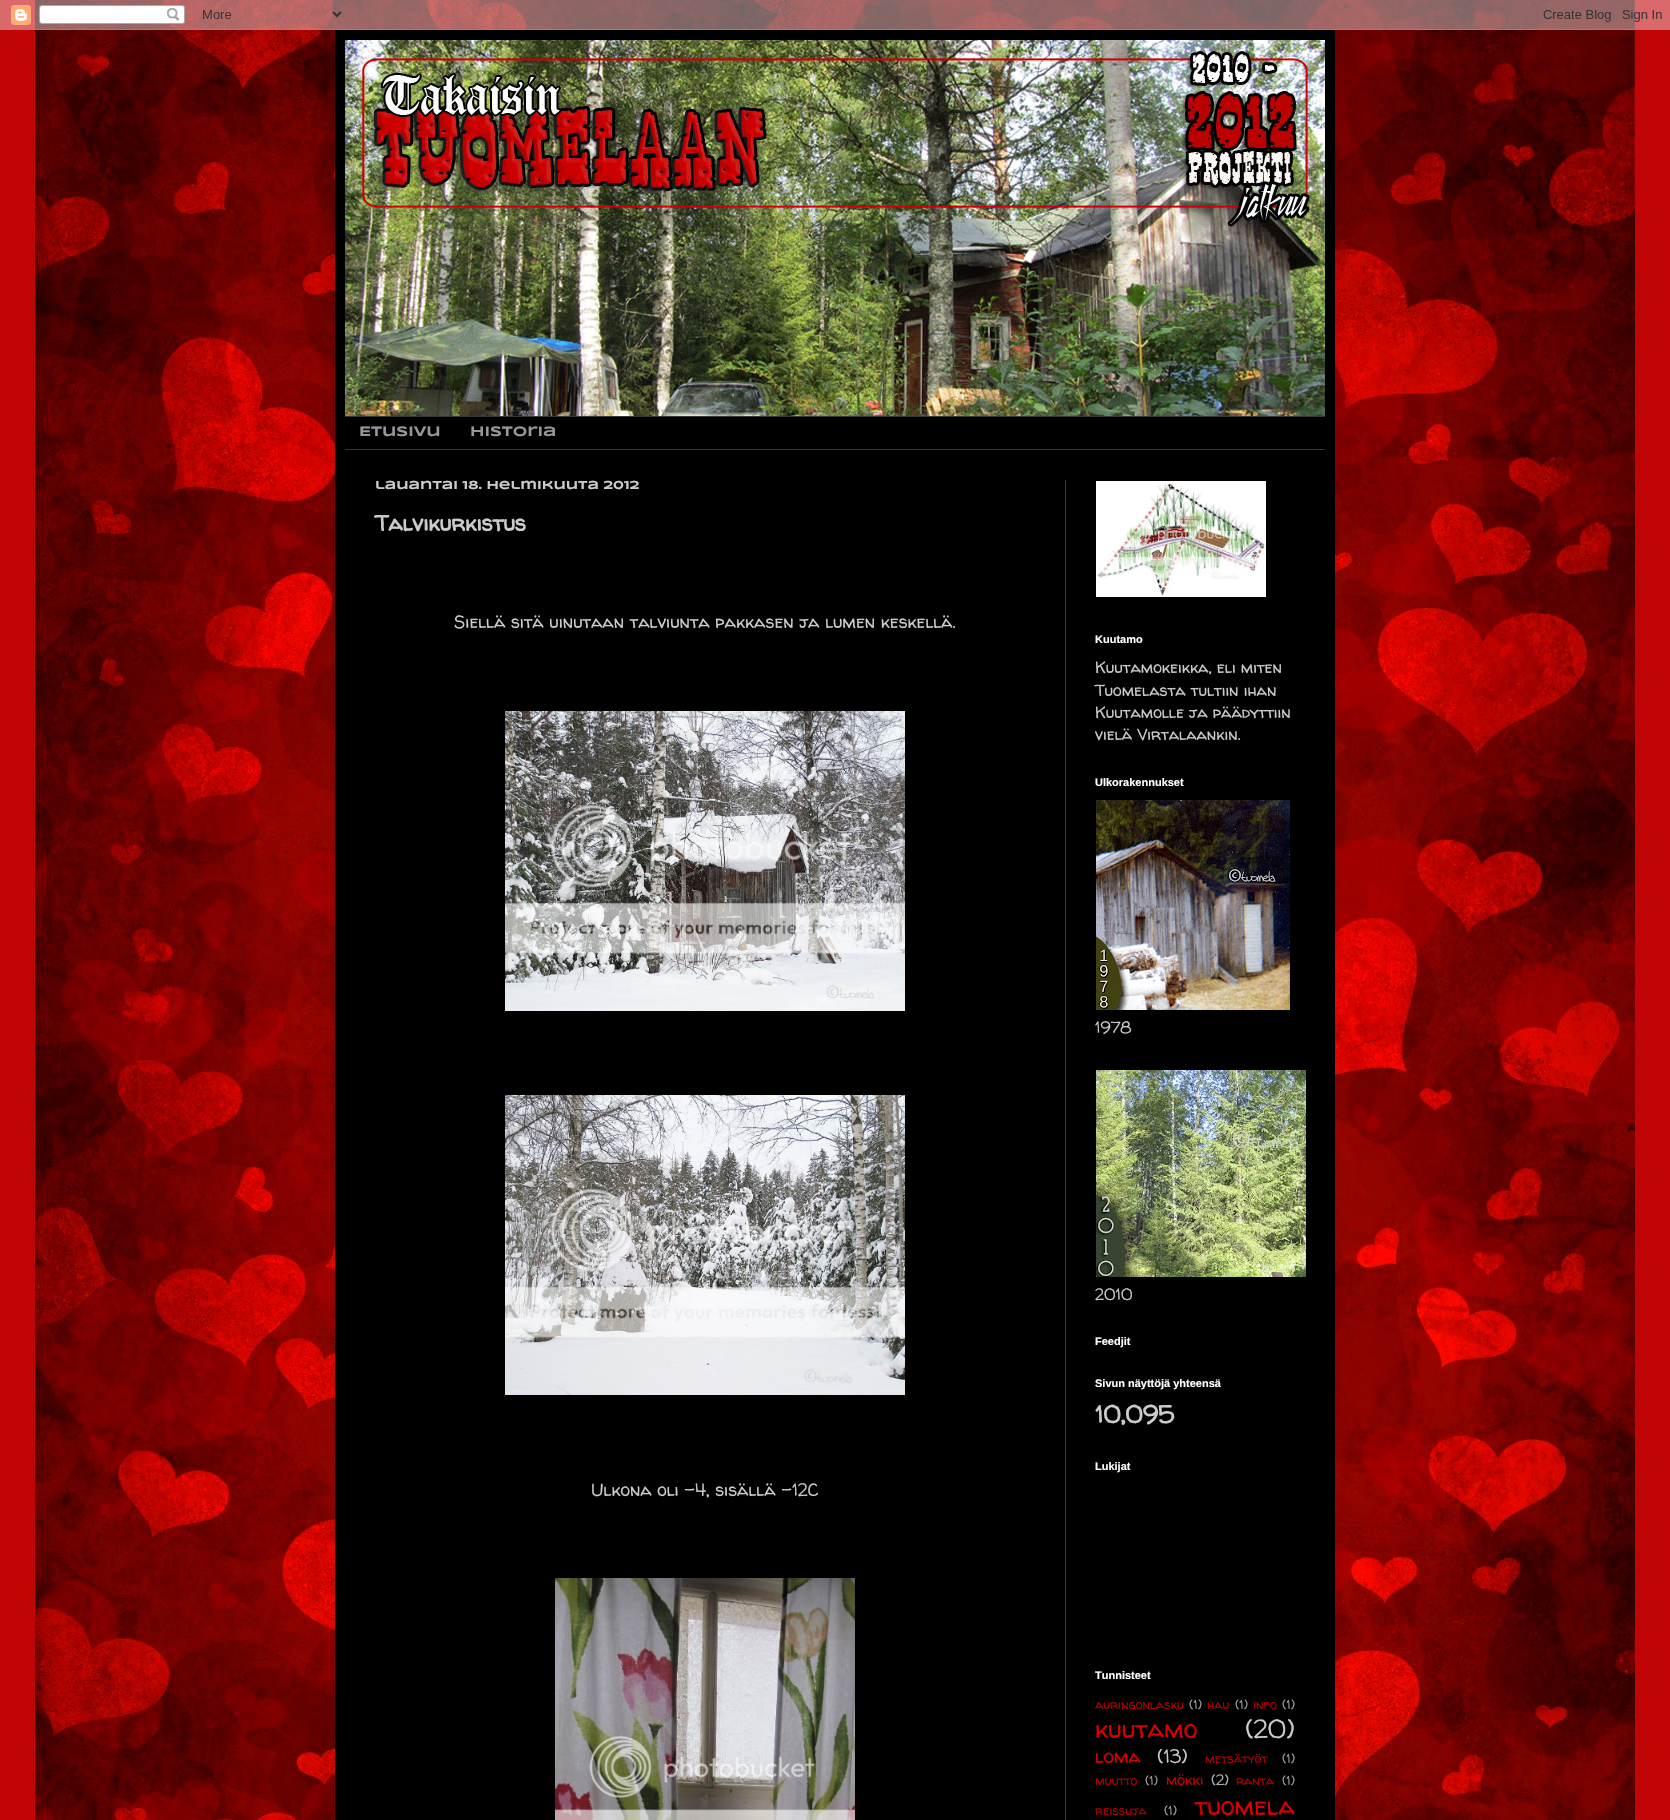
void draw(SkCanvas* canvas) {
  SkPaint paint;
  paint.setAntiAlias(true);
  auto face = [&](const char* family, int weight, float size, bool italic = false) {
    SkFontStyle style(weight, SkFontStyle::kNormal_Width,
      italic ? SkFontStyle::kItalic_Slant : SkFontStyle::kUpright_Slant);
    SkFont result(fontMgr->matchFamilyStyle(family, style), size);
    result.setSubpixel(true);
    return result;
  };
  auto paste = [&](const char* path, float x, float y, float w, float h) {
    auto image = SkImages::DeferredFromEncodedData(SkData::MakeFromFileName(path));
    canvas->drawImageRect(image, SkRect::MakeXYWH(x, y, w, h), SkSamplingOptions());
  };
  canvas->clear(0xffbf0506);
  paste("img/1.png", 35, 0, 1600, 1820);
  paint.setColor(0x26000000);
  paint.setMaskFilter(SkMaskFilter::MakeBlur(kNormal_SkBlurStyle, 20));
  canvas->drawRect(SkRect::MakeXYWH(335, 30, 1000, 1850), paint);
  paint.setMaskFilter(nullptr);
  paste("img/2.png", 0, 0, 1670, 30);
  paint.setColor(0xff000000);
  canvas->drawRect(SkRect::MakeXYWH(335, 30, 1000, 1790), paint);
  paste("img/3.png", 345, 40, 980, 376);
  paint.setColor(0xff363636);
  canvas->drawRect(SkRect::MakeXYWH(345, 416, 980, 1), paint);
  canvas->drawRect(SkRect::MakeXYWH(345, 449, 980, 1), paint);
  paste("img/4.png", 505, 711, 400, 300);
  paste("img/5.png", 505, 1095, 400, 300);
  paste("img/6.png", 555, 1578, 300, 242);
  paste("img/7.png", 1096, 481, 170, 116);
  paste("img/8.png", 1096, 800, 194, 210);
  paste("img/9.png", 1096, 1070, 210, 207);
  canvas->drawRect(SkRect::MakeXYWH(1065, 480, 1, 1340), paint);
  auto f0 = face("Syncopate", 700, 14);
  paint.setColor(0xff979797);
  canvas->drawString("Etusivu", 359, 436, f0, paint);
  canvas->drawString("Historia", 470, 436, f0, paint);
  auto f1 = face("Syncopate", 700, 12);
  paint.setColor(0xffcbcbcb);
  canvas->drawString("lauantai 18. helmikuuta 2012", 375, 489, f1, paint);
  auto f2 = face("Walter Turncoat", 700, 22);
  canvas->drawString("Talvikurkistus", 375, 531, f2, paint);
  auto f3 = face("Walter Turncoat", 400, 17.6f);
  canvas->drawString("Siellä sitä uinutaan talviunta pakkasen ja lumen keskellä.", 454, 628, f3, paint);
  canvas->drawString("Ulkona oli -4, sisällä -12C", 591, 1496, f3, paint);
  auto f4 = face("Liberation Sans", 700, 11);
  paint.setColor(0xffffffff);
  canvas->drawString("Kuutamo", 1095, 643, f4, paint);
  auto f5 = face("Walter Turncoat", 400, 16);
  paint.setColor(0xffcbcbcb);
  {
    const struct { const char* s; float x, y; } items[] = {
      {"Kuutamokeikka, eli miten", 1095, 673},
      {"Tuomelasta tultiin ihan", 1095, 696},
      {"Kuutamolle ja päädyttiin", 1095, 718},
      {"vielä Virtalaankin.", 1095, 740},
    };
    for (auto [s, x, y] : items) {
      canvas->drawString(s, x, y, f5, paint);
    }
  }
  paint.setColor(0xffffffff);
  canvas->drawString("Ulkorakennukset", 1095, 786, f4, paint);
  paint.setColor(0xffcbcbcb);
  canvas->drawString("1978", 1095, 1033, f5, paint);
  canvas->drawString("2010", 1095, 1300, f5, paint);
  paint.setColor(0xffffffff);
  canvas->drawString("Feedjit", 1095, 1345, f4, paint);
  canvas->drawString("Sivun näyttöjä yhteensä", 1095, 1387, f4, paint);
  auto f6 = face("Walter Turncoat", 700, 24);
  paint.setColor(0xffcbcbcb);
  canvas->drawString("10,095", 1095, 1423, f6, paint);
  paint.setColor(0xffffffff);
  canvas->drawString("Lukijat", 1095, 1470, f4, paint);
  canvas->drawString("Tunnisteet", 1095, 1679, f4, paint);
  auto f7 = face("Walter Turncoat", 400, 12.75f);
  paint.setColor(0xffac0001);
  canvas->drawString("auringonlasku", 1095, 1709, f7, paint);
  paint.setColor(0xffa2a2a2);
  canvas->drawString("(1)", 1189, 1709, f7, paint);
  paint.setColor(0xffac0001);
  canvas->drawString("hau", 1207, 1709, f7, paint);
  paint.setColor(0xffa2a2a2);
  canvas->drawString("(1)", 1235, 1709, f7, paint);
  paint.setColor(0xffac0001);
  canvas->drawString("info", 1253, 1709, f7, paint);
  paint.setColor(0xffa2a2a2);
  canvas->drawString("(1)", 1282, 1709, f7, paint);
  auto f8 = face("Walter Turncoat", 400, 25.5f);
  paint.setColor(0xffd70001);
  canvas->drawString("kuutamo", 1095, 1738, f8, paint);
  paint.setColor(0xffcbcbcb);
  canvas->drawString("(20)", 1245, 1738, f8, paint);
  auto f9 = face("Walter Turncoat", 400, 19);
  paint.setColor(0xffd70001);
  canvas->drawString("loma", 1095, 1763, f9, paint);
  paint.setColor(0xffcbcbcb);
  canvas->drawString("(13)", 1157, 1763, f9, paint);
  paint.setColor(0xffac0001);
  canvas->drawString("metsätyöt", 1205, 1763, f7, paint);
  paint.setColor(0xffa2a2a2);
  canvas->drawString("(1)", 1282, 1763, f7, paint);
  paint.setColor(0xffac0001);
  canvas->drawString("muutto", 1095, 1785, f7, paint);
  paint.setColor(0xffa2a2a2);
  canvas->drawString("(1)", 1145, 1785, f7, paint);
  auto f10 = face("Walter Turncoat", 400, 14.5f);
  paint.setColor(0xffc20001);
  canvas->drawString("mökki", 1166, 1785, f10, paint);
  paint.setColor(0xffb7b7b7);
  canvas->drawString("(2)", 1211, 1785, f10, paint);
  paint.setColor(0xffac0001);
  canvas->drawString("ranta", 1236, 1785, f7, paint);
  paint.setColor(0xffa2a2a2);
  canvas->drawString("(1)", 1282, 1785, f7, paint);
  paint.setColor(0xffac0001);
  canvas->drawString("reissuja", 1095, 1815, f7, paint);
  paint.setColor(0xffa2a2a2);
  canvas->drawString("(1)", 1164, 1815, f7, paint);
  paint.setColor(0xffd70001);
  canvas->drawString("tuomela", 1195, 1815, f8, paint);
}
